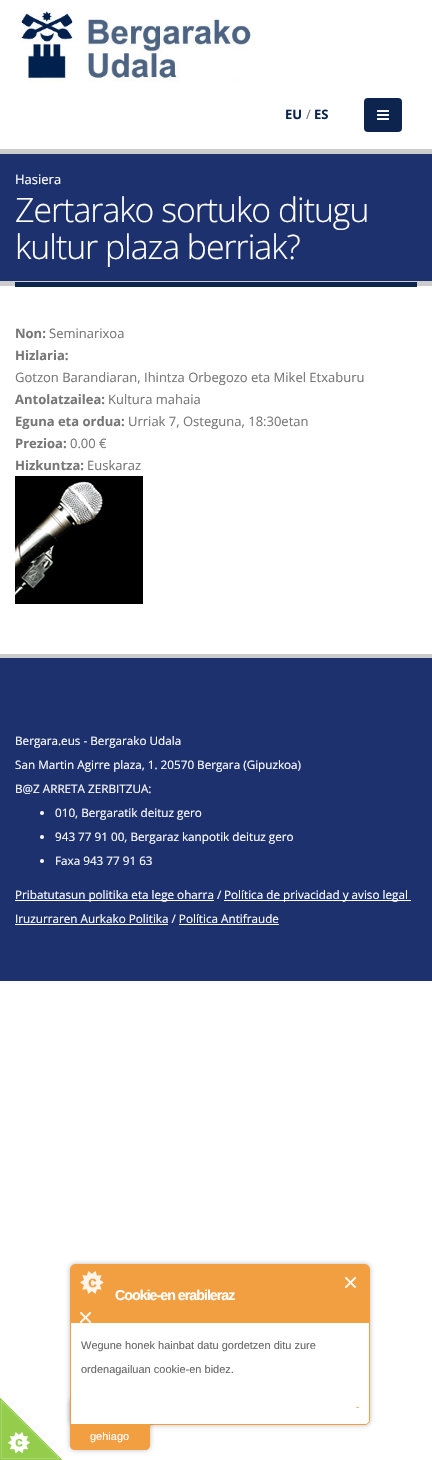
void draw(SkCanvas* canvas) {
  SkPaint paint;
  paint.setAntiAlias(true);
  auto face = [&](const char* family, int weight, float size, bool italic = false) {
    SkFontStyle style(weight, SkFontStyle::kNormal_Width,
      italic ? SkFontStyle::kItalic_Slant : SkFontStyle::kUpright_Slant);
    SkFont result(fontMgr->matchFamilyStyle(family, style), size);
    result.setSubpixel(true);
    return result;
  };
  auto writeSpaced = [&](const char* s, float x, float y, const SkFont& font, const SkPaint& ink, float letter, float word) {
    std::vector<SkGlyphID> glyphs(font.countText(s, strlen(s), SkTextEncoding::kUTF8));
    std::vector<float> xs(glyphs.size());
    font.textToGlyphs(s, strlen(s), SkTextEncoding::kUTF8, glyphs);
    font.getXPos(glyphs, xs, x);
    float extra = 0;
    for (size_t i = 0; i < glyphs.size(); i++) {
      xs[i] += extra;
      extra += letter + word * (glyphs[i] == font.unicharToGlyph(' '));
    }
    canvas->drawTextBlob(SkTextBlob::MakeFromPosHGlyphs(glyphs, xs, y, font), 0, 0, ink);
  };
  auto paste = [&](const char* path, float x, float y, float w, float h) {
    auto image = SkImages::DeferredFromEncodedData(SkData::MakeFromFileName(path));
    canvas->drawImageRect(image, SkRect::MakeXYWH(x, y, w, h), SkSamplingOptions());
  };
  auto shape = [&](const char* data, bool evenOdd = false) {
    SkPath result = *SkParsePath::FromSVGString(data);
    if (evenOdd) result.setFillType(SkPathFillType::kEvenOdd);
    return result;
  };
  canvas->clear(0xffffffff);
  paste("img/1.png", 21, 8, 233, 74);
  paint.setColor(0xff0c244e);
  canvas->drawRoundRect(SkRect::MakeXYWH(364, 98, 38, 34), 4, 4, paint);
  paste("img/2.png", 377, 110, 12, 10);
  {
    const struct { float x, y, w, h; SkColor color; } items[] = {
      {0, 154, 432, 127, 0xff1e316f},
      {0, 149, 432, 5, 0xffcccccc},
      {0, 281, 432, 5, 0xffcccccc},
      {15, 282, 402, 5, 0xff0c244e},
    };
    for (auto [x, y, w, h, color] : items) {
      paint.setColor(color);
      canvas->drawRect(SkRect::MakeXYWH(x, y, w, h), paint);
    }
  }
  paste("img/3.png", 15, 476, 128, 128);
  paint.setColor(0xff1e316f);
  canvas->drawRect(SkRect::MakeXYWH(0, 658, 432, 323), paint);
  paint.setColor(0xffcccccc);
  canvas->drawRect(SkRect::MakeXYWH(0, 654, 432, 4), paint);
  paint.setColor(0xffffffff);
  canvas->drawCircle(42, 813, 2, paint);
  canvas->drawCircle(42, 837, 2, paint);
  canvas->drawCircle(42, 861, 2, paint);
  {
    const struct { float x, y, w, h; SkColor color; } items[] = {
      {15, 900, 199, 1, 0xffffffff},
      {224, 900, 187, 1, 0xffffffff},
      {15, 924, 153, 1, 0xffffffff},
      {179, 924, 100, 1, 0xffffffff},
    };
    for (auto [x, y, w, h, color] : items) {
      paint.setColor(color);
      canvas->drawRect(SkRect::MakeXYWH(x, y, w, h), paint);
    }
  }
  paste("img/4.png", 0, 1398, 62, 62);
  paint.setColor(0x4d1a1a1a);
  paint.setMaskFilter(SkMaskFilter::MakeBlur(kNormal_SkBlurStyle, 2.5f));
  canvas->drawRoundRect(SkRect::MakeXYWH(70, 1264, 300, 161), 5, 5, paint);
  paint.setMaskFilter(nullptr);
  paint.setColor(0xffffffff);
  canvas->drawPath(shape("M75 1264.5H365C367.5 1264.5 369.5 1266.5 369.5 1269V1420C369.5 1422.5 367.5 1424.5 365 1424.5H70.5V1269C70.5 1266.5 72.5 1264.5 75 1264.5Z"), paint);
  paint.setStroke(true);
  paint.setStrokeWidth(1);
  paint.setColor(0xfff29f41);
  canvas->drawPath(shape("M75 1264.5H365C367.5 1264.5 369.5 1266.5 369.5 1269V1420C369.5 1422.5 367.5 1424.5 365 1424.5H70.5V1269C70.5 1266.5 72.5 1264.5 75 1264.5Z"), paint);
  paint.setStroke(false);
  paint.setColor(0x4d1a1a1a);
  paint.setMaskFilter(SkMaskFilter::MakeBlur(kNormal_SkBlurStyle, 2.5f));
  canvas->drawRoundRect(SkRect::MakeXYWH(70, 1398, 80, 52), 5, 5, paint);
  paint.setMaskFilter(nullptr);
  paint.setColor(0xfff29f41);
  canvas->drawPath(shape("M70 1398H150V1445C150 1448 148 1450 145 1450H75C72 1450 70 1448 70 1445Z"), paint);
  paint.setColor(0xffffffff);
  canvas->drawPath(shape("M76 1265H364C367 1265 369 1267 369 1270V1419C369 1422 367 1424 364 1424H71V1270C71 1267 73 1265 76 1265Z"), paint);
  paint.setColor(0xfff29f41);
  canvas->drawPath(shape("M74 1265H366C367.5 1265 369 1266.5 369 1268V1323H71V1268C71 1266.5 72.5 1265 74 1265Z"), paint);
  paste("img/5.png", 80, 1271, 24, 52);
  paste("img/6.png", 345, 1276, 12, 13);
  auto f0 = face("Open Sans", 700, 13);
  paint.setColor(0xff0c244e);
  canvas->drawString("EU", 285, 119, f0, paint);
  auto f1 = face("Open Sans", 400, 13);
  paint.setColor(0xff777777);
  canvas->drawString("/", 306, 119, f1, paint);
  paint.setColor(0xff0c244e);
  canvas->drawString("ES", 314, 119, f0, paint);
  paint.setColor(0xffffffff);
  canvas->drawString("Hasiera", 15, 184, f1, paint);
  auto f2 = face("Open Sans", 300, 33.75f);
  writeSpaced("Zertarako sortuko ditugu", 15, 222, f2, paint, -1, 0);
  writeSpaced("kultur plaza berriak?", 15, 259, f2, paint, -1, 0);
  paint.setColor(0xff777777);
  canvas->drawString("Non:", 15, 338, f0, paint);
  canvas->drawString("Seminarixoa", 49, 338, f1, paint);
  canvas->drawString("Hizlaria:", 15, 360, f0, paint);
  canvas->drawString("Gotzon Barandiaran, Ihintza Orbegozo eta Mikel Etxaburu", 15, 382, f1, paint);
  canvas->drawString("Antolatzailea:", 15, 404, f0, paint);
  canvas->drawString("Kultura mahaia", 108, 404, f1, paint);
  canvas->drawString("Eguna eta ordua:", 15, 426, f0, paint);
  canvas->drawString("Urriak 7, Osteguna, 18:30etan", 128, 426, f1, paint);
  canvas->drawString("Prezioa:", 15, 448, f0, paint);
  canvas->drawString("0.00 €", 70, 448, f1, paint);
  canvas->drawString("Hizkuntza:", 15, 470, f0, paint);
  canvas->drawString("Euskaraz", 87, 470, f1, paint);
  auto f3 = face("Open Sans", 400, 11.7f);
  paint.setColor(0xffffffff);
  {
    const struct { const char* s; float x, y; } items[] = {
      {"Bergara.eus - Bergarako Udala", 15, 745},
      {"San Martin Agirre plaza, 1. 20570 Bergara (Gipuzkoa)", 15, 769},
      {"B@Z ARRETA ZERBITZUA:", 15, 793},
      {"010, Bergaratik deituz gero", 55, 817},
      {"943 77 91 00, Bergaraz kanpotik deituz gero", 55, 841},
      {"Faxa 943 77 91 63", 55, 865},
      {"Pribatutasun politika eta lege oharra /", 15, 899},
      {"Política de privacidad y aviso legal", 224, 899},
      {"Iruzurraren Aurkako Politika / Política Antifraude", 15, 923},
    };
    for (auto [s, x, y] : items) {
      canvas->drawString(s, x, y, f3, paint);
    }
  }
  auto f4 = face("Liberation Sans", 700, 14.25f);
  writeSpaced("Cookie-en erabileraz", 115, 1300, f4, paint, -1, 0);
  auto f5 = face("Liberation Sans", 400, 11);
  paint.setColor(0xff666666);
  canvas->drawString("Wegune honek hainbat datu gordetzen ditu zure", 81, 1349, f5, paint);
  canvas->drawString("ordenagailuan cookie-en bidez.", 81, 1373, f5, paint);
  auto f6 = face("Liberation Sans", 400, 10);
  paint.setColor(0xfff29f41);
  canvas->drawString("-", 356, 1410, f6, paint);
  paint.setColor(0xffffffff);
  canvas->drawString("gehiago", 90, 1440, f5, paint);
}
